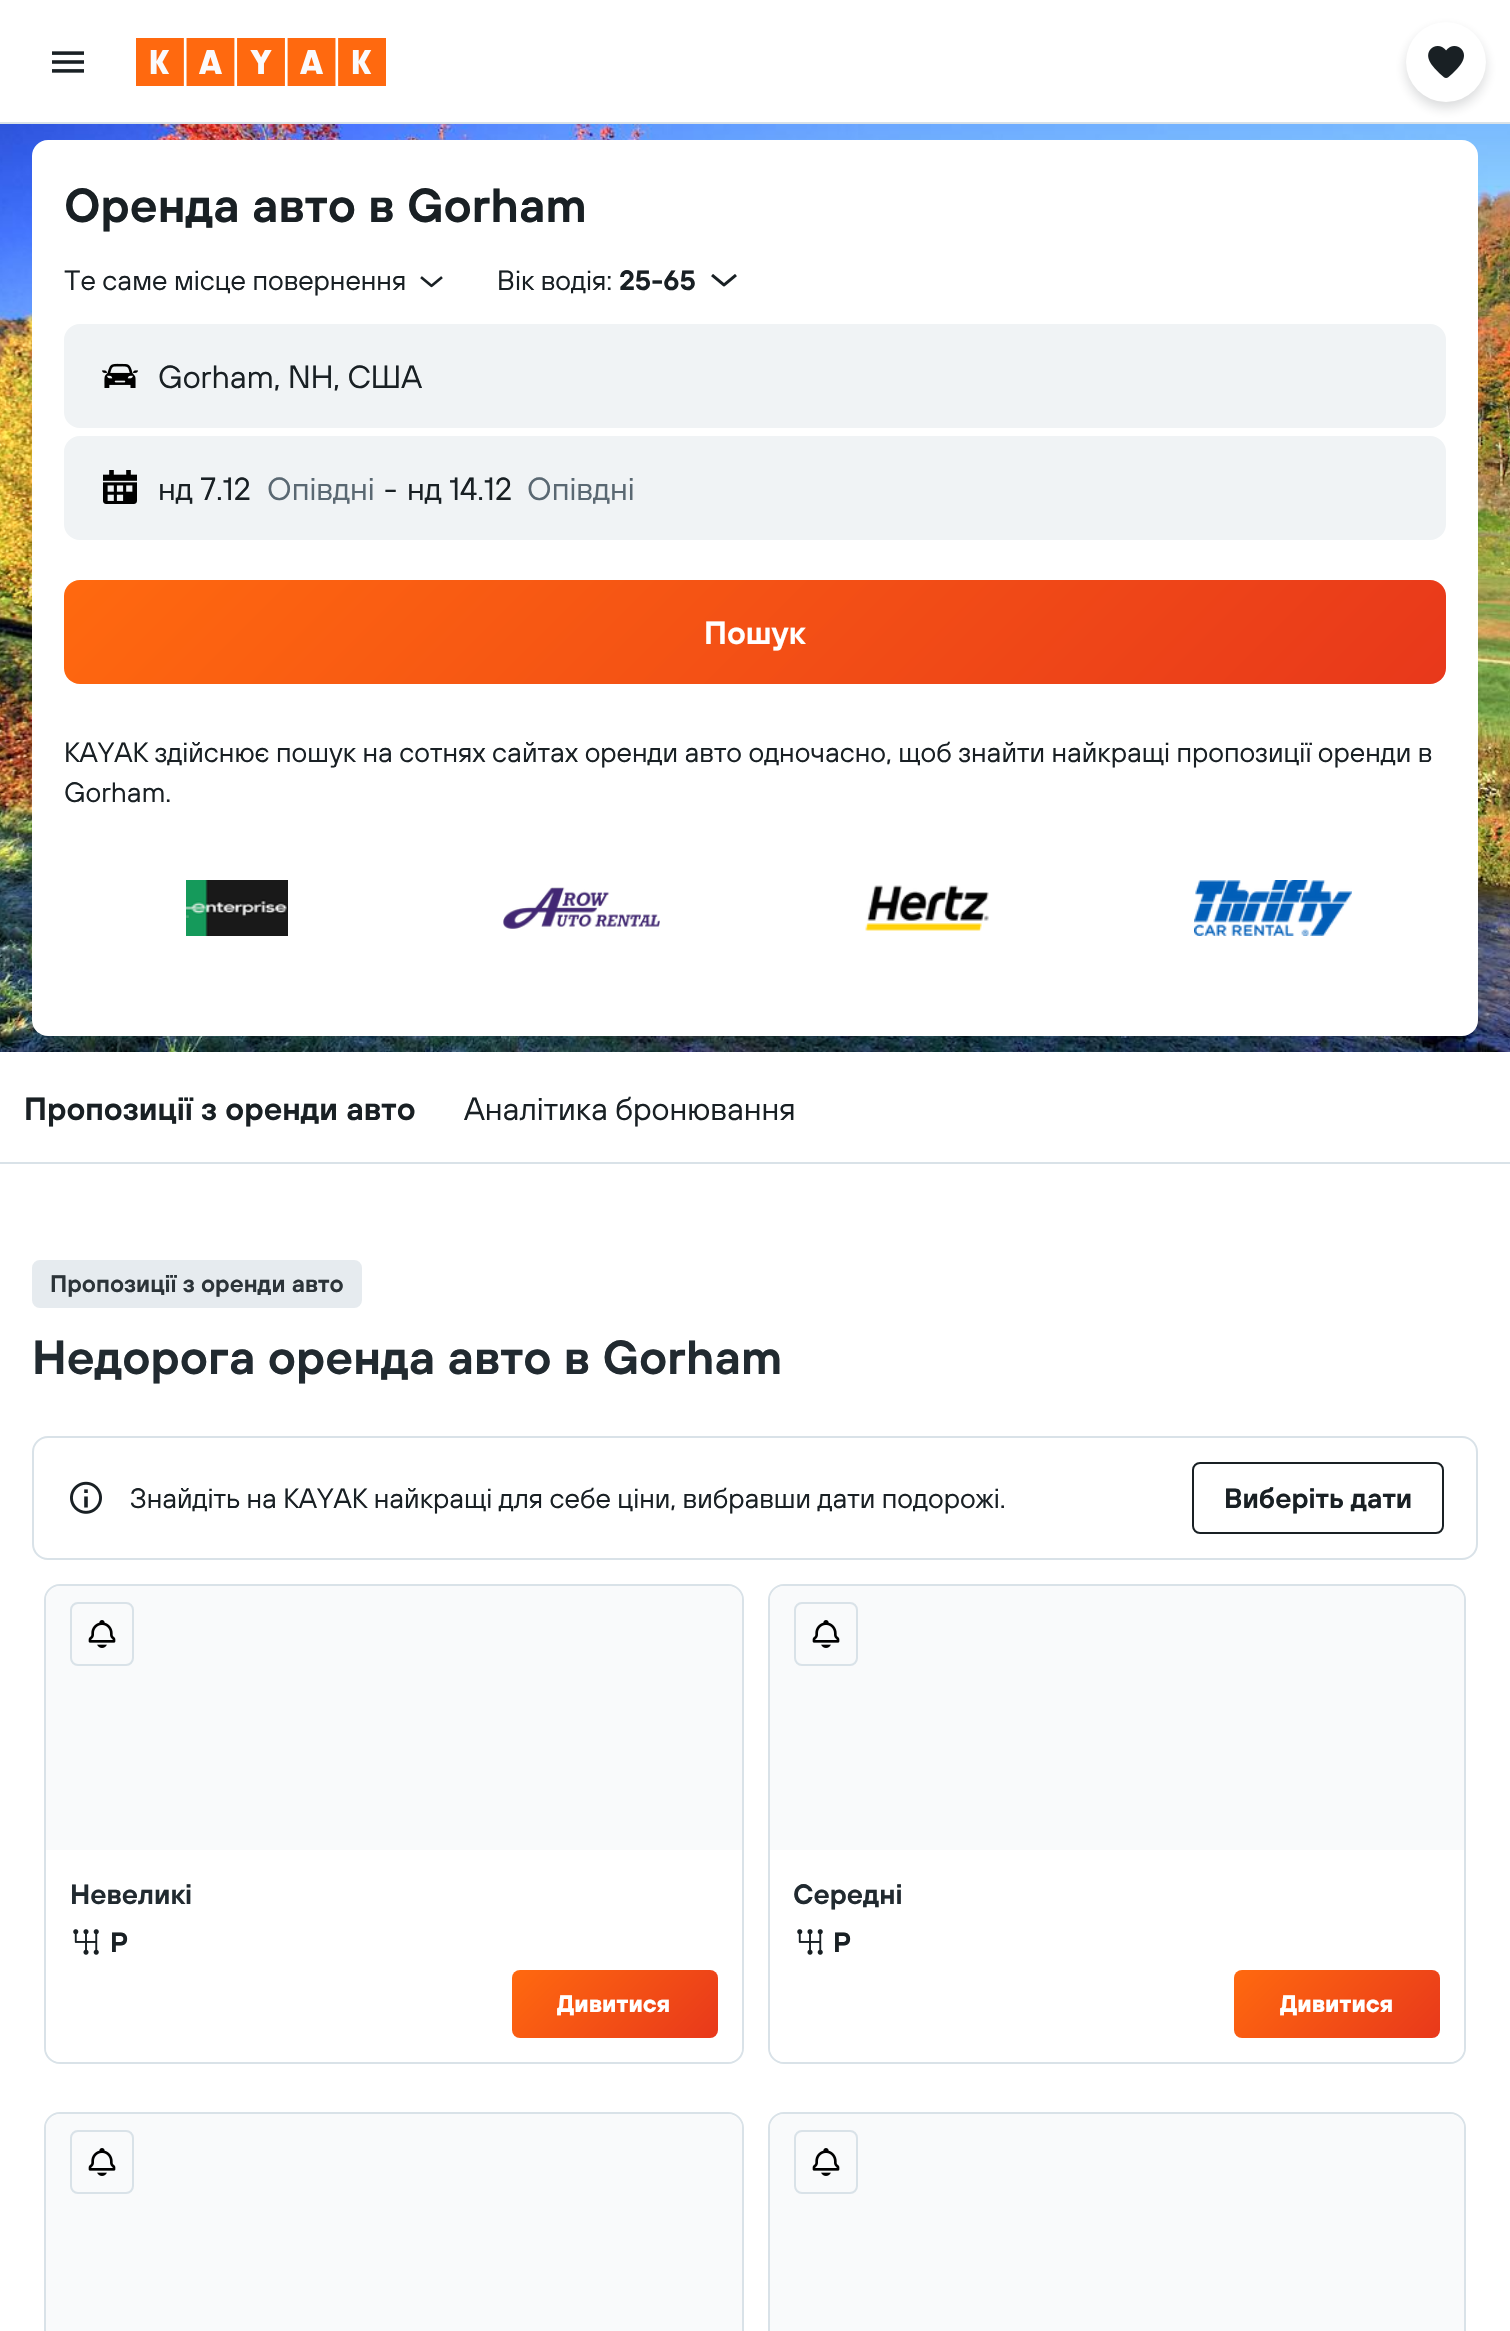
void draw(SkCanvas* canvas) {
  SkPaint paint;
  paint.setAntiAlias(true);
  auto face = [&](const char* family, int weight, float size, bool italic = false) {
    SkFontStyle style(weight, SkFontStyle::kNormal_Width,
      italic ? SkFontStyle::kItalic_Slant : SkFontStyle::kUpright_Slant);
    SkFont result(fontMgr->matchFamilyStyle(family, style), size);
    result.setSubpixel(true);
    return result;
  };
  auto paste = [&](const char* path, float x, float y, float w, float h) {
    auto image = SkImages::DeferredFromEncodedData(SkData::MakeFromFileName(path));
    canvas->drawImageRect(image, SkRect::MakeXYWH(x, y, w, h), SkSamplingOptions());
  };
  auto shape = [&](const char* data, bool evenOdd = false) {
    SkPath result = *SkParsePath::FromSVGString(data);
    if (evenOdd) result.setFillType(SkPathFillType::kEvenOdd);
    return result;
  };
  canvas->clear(0xffffffff);
  paint.setColor(0xffd9e2e8);
  canvas->drawRect(SkRect::MakeXYWH(0, 122, 1510, 2), paint);
  paste("img/1.png", 52, 51, 32, 22);
  paste("img/2.png", 136, 38, 250, 48);
  paste("img/4.png", 0, 124, 1510, 928);
  paint.setColor(0x29192024);
  paint.setMaskFilter(SkMaskFilter::MakeBlur(kNormal_SkBlurStyle, 6));
  canvas->drawRoundRect(SkRect::MakeXYWH(1406, 28, 80, 80), 40, 40, paint);
  paint.setMaskFilter(nullptr);
  paint.setColor(0xffffffff);
  canvas->drawCircle(1446, 62, 40, paint);
  paste("img/3.png", 1428, 46, 36, 32);
  canvas->drawRoundRect(SkRect::MakeXYWH(32, 140, 1446, 896), 16, 16, paint);
  paste("img/5.png", 420, 276, 23, 12);
  paste("img/6.png", 711, 274, 26, 13);
  paint.setColor(0xfff0f3f5);
  canvas->drawRoundRect(SkRect::MakeXYWH(65, 325, 1380, 102), 15, 15, paint);
  paint.setStroke(true);
  paint.setStrokeWidth(2);
  canvas->drawRoundRect(SkRect::MakeXYWH(65, 325, 1380, 102), 15, 15, paint);
  paste("img/7.png", 102, 363, 36, 25);
  paint.setStroke(false);
  canvas->drawRoundRect(SkRect::MakeXYWH(65, 437, 1380, 102), 15, 15, paint);
  paint.setStroke(true);
  canvas->drawRoundRect(SkRect::MakeXYWH(65, 437, 1380, 102), 15, 15, paint);
  paste("img/8.png", 103, 470, 34, 34);
  paint.setStroke(false);
  {
    const SkColor colors[] = {0xffff690f, 0xffe8381b};
    const float stops[] = {0, 1};
    const SkPoint ends[] = {{383, 261}, {1127, 1004}};
    paint.setShader(SkGradientShader::MakeLinear(ends, colors, stops, 2, SkTileMode::kClamp));
    paint.setAlpha(255);
  }
  canvas->drawRoundRect(SkRect::MakeXYWH(64, 580, 1382, 104), 16, 16, paint);
  paste("img/9.png", 186, 880, 102, 56);
  paste("img/10.png", 503, 887, 157, 42);
  paste("img/11.png", 865, 885, 124, 46);
  paste("img/12.png", 1194, 880, 158, 56);
  paint.setShader(nullptr);
  paint.setColor(0xffd9e2e8);
  canvas->drawRect(SkRect::MakeXYWH(0, 1162, 1510, 2), paint);
  paint.setColor(0xffe6ebef);
  canvas->drawRoundRect(SkRect::MakeXYWH(33, 1261, 328, 46), 7, 7, paint);
  paint.setStroke(true);
  canvas->drawRoundRect(SkRect::MakeXYWH(33, 1261, 328, 46), 7, 7, paint);
  paint.setColor(0xffd9e2e8);
  canvas->drawRoundRect(SkRect::MakeXYWH(33, 1437, 1444, 122), 15, 15, paint);
  paste("img/13.png", 70, 1481, 32, 33);
  paint.setColor(0xff192024);
  canvas->drawRoundRect(SkRect::MakeXYWH(1193, 1463, 250, 70), 7, 7, paint);
  paint.setColor(0xffd9e2e8);
  canvas->drawRoundRect(SkRect::MakeXYWH(45, 1585, 698, 478), 15, 15, paint);
  paint.setStroke(false);
  paint.setColor(0xfff9fafb);
  canvas->drawPath(shape("M60 1586H728C735.5 1586 742 1592.5 742 1600V1850H46V1600C46 1592.5 52.5 1586 60 1586Z"), paint);
  paint.setStroke(true);
  paint.setColor(0xffd9e2e8);
  canvas->drawRoundRect(SkRect::MakeXYWH(71, 1603, 62, 62), 7, 7, paint);
  paste("img/14.png", 88, 1620, 28, 28);
  paint.setStroke(false);
  paint.setColor(0xffffffff);
  canvas->drawPath(shape("M46 1850H742V2048C742 2055.5 735.5 2062 728 2062H60C52.5 2062 46 2055.5 46 2048Z"), paint);
  paste("img/15.png", 73, 1929, 26, 26);
  {
    const SkColor colors[] = {0xffff690f, 0xffe8381b};
    const float stops[] = {0, 1};
    const SkPoint ends[] = {{547, 1936}, {684, 2073}};
    paint.setShader(SkGradientShader::MakeLinear(ends, colors, stops, 2, SkTileMode::kClamp));
    paint.setAlpha(255);
  }
  canvas->drawRoundRect(SkRect::MakeXYWH(512, 1970, 206, 68), 8, 8, paint);
  paint.setStroke(true);
  paint.setShader(nullptr);
  paint.setColor(0xffd9e2e8);
  canvas->drawRoundRect(SkRect::MakeXYWH(769, 1585, 696, 478), 15, 15, paint);
  paint.setStroke(false);
  paint.setColor(0xfff9fafb);
  canvas->drawPath(shape("M784 1586H1450C1457.5 1586 1464 1592.5 1464 1600V1850H770V1600C770 1592.5 776.5 1586 784 1586Z"), paint);
  paint.setStroke(true);
  paint.setColor(0xffd9e2e8);
  canvas->drawRoundRect(SkRect::MakeXYWH(795, 1603, 62, 62), 7, 7, paint);
  paste("img/14.png", 812, 1620, 28, 28);
  paint.setStroke(false);
  paint.setColor(0xffffffff);
  canvas->drawPath(shape("M770 1850H1464V2048C1464 2055.5 1457.5 2062 1450 2062H784C776.5 2062 770 2055.5 770 2048Z"), paint);
  paste("img/15.png", 797, 1929, 26, 26);
  {
    const SkColor colors[] = {0xffff690f, 0xffe8381b};
    const float stops[] = {0, 1};
    const SkPoint ends[] = {{1269, 1936}, {1406, 2073}};
    paint.setShader(SkGradientShader::MakeLinear(ends, colors, stops, 2, SkTileMode::kClamp));
    paint.setAlpha(255);
  }
  canvas->drawRoundRect(SkRect::MakeXYWH(1234, 1970, 206, 68), 8, 8, paint);
  paint.setStroke(true);
  paint.setShader(nullptr);
  paint.setColor(0xffd9e2e8);
  canvas->drawRoundRect(SkRect::MakeXYWH(45, 2113, 698, 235), 15, 15, paint);
  paint.setStroke(false);
  paint.setColor(0xfff9fafb);
  canvas->drawPath(shape("M60 2114H728C735.5 2114 742 2120.5 742 2128V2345H46V2128C46 2120.5 52.5 2114 60 2114Z"), paint);
  paint.setStroke(true);
  paint.setColor(0xffd9e2e8);
  canvas->drawRoundRect(SkRect::MakeXYWH(71, 2131, 62, 62), 7, 7, paint);
  paste("img/14.png", 88, 2148, 28, 28);
  canvas->drawRoundRect(SkRect::MakeXYWH(769, 2113, 696, 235), 15, 15, paint);
  paint.setStroke(false);
  paint.setColor(0xfff9fafb);
  canvas->drawPath(shape("M784 2114H1450C1457.5 2114 1464 2120.5 1464 2128V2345H770V2128C770 2120.5 776.5 2114 784 2114Z"), paint);
  paint.setStroke(true);
  paint.setColor(0xffd9e2e8);
  canvas->drawRoundRect(SkRect::MakeXYWH(795, 2131, 62, 62), 7, 7, paint);
  paste("img/14.png", 812, 2148, 28, 28);
  auto f0 = face("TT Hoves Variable", 600, 48);
  paint.setStroke(false);
  paint.setColor(0xff192024);
  canvas->drawString("Оренда авто в Gorham", 64, 222, f0, paint);
  auto f1 = face("TT Hoves Variable", 400, 28);
  canvas->drawString("Те саме місце повернення", 64, 290, f1, paint);
  canvas->drawString("Вік водія:", 497, 290, f1, paint);
  auto f2 = face("TT Hoves Variable", 600, 28);
  canvas->drawString("25-65", 619, 290, f2, paint);
  auto f3 = face("TT Hoves Variable", 400, 32);
  canvas->drawString("Gorham, NH, США", 158, 388, f3, paint);
  canvas->drawString("нд 7.12", 158, 500, f3, paint);
  paint.setColor(0xff5a6872);
  canvas->drawString("Опівдні", 267, 500, f3, paint);
  paint.setColor(0xff192024);
  canvas->drawString("-", 384, 500, f3, paint);
  canvas->drawString("нд 14.12", 407, 500, f3, paint);
  paint.setColor(0xff5a6872);
  canvas->drawString("Опівдні", 527, 500, f3, paint);
  auto f4 = face("TT Hoves Variable", 600, 32);
  paint.setColor(0xffffffff);
  canvas->drawString("Пошук", 704, 644, f4, paint);
  paint.setColor(0xff192024);
  canvas->drawString("KAYAK здійснює пошук на сотнях сайтах оренди авто одночасно, щоб знайти найкращі пропозиції оренди в", 64, 762, f1, paint);
  canvas->drawString("Gorham.", 64, 802, f1, paint);
  canvas->drawString("Пропозиції з оренди авто", 24, 1120, f4, paint);
  canvas->drawString("Аналітика бронювання", 464, 1120, f3, paint);
  auto f5 = face("TT Hoves Variable", 600, 24);
  paint.setColor(0xff2c3439);
  canvas->drawString("Пропозиції з оренди авто", 50, 1292, f5, paint);
  paint.setColor(0xff212a30);
  canvas->drawString("Недорога оренда авто в Gorham", 32, 1374, f0, paint);
  paint.setColor(0xff192024);
  canvas->drawString("Знайдіть на KAYAK найкращі для себе ціни, вибравши дати подорожі.", 130, 1508, f1, paint);
  canvas->drawString("Виберіть дати", 1224, 1508, f2, paint);
  paint.setColor(0xff212a30);
  canvas->drawString("Невеликі", 70, 1904, f2, paint);
  paint.setColor(0xff192024);
  canvas->drawString("Р", 110, 1952, f2, paint);
  auto f6 = face("TT Hoves Variable", 700, 24);
  paint.setColor(0xffffffff);
  canvas->drawString("Дивитися", 557, 2012, f6, paint);
  paint.setColor(0xff212a30);
  canvas->drawString("Середні", 793, 1904, f2, paint);
  paint.setColor(0xff192024);
  canvas->drawString("Р", 833, 1952, f2, paint);
  paint.setColor(0xffffffff);
  canvas->drawString("Дивитися", 1280, 2012, f6, paint);
}
